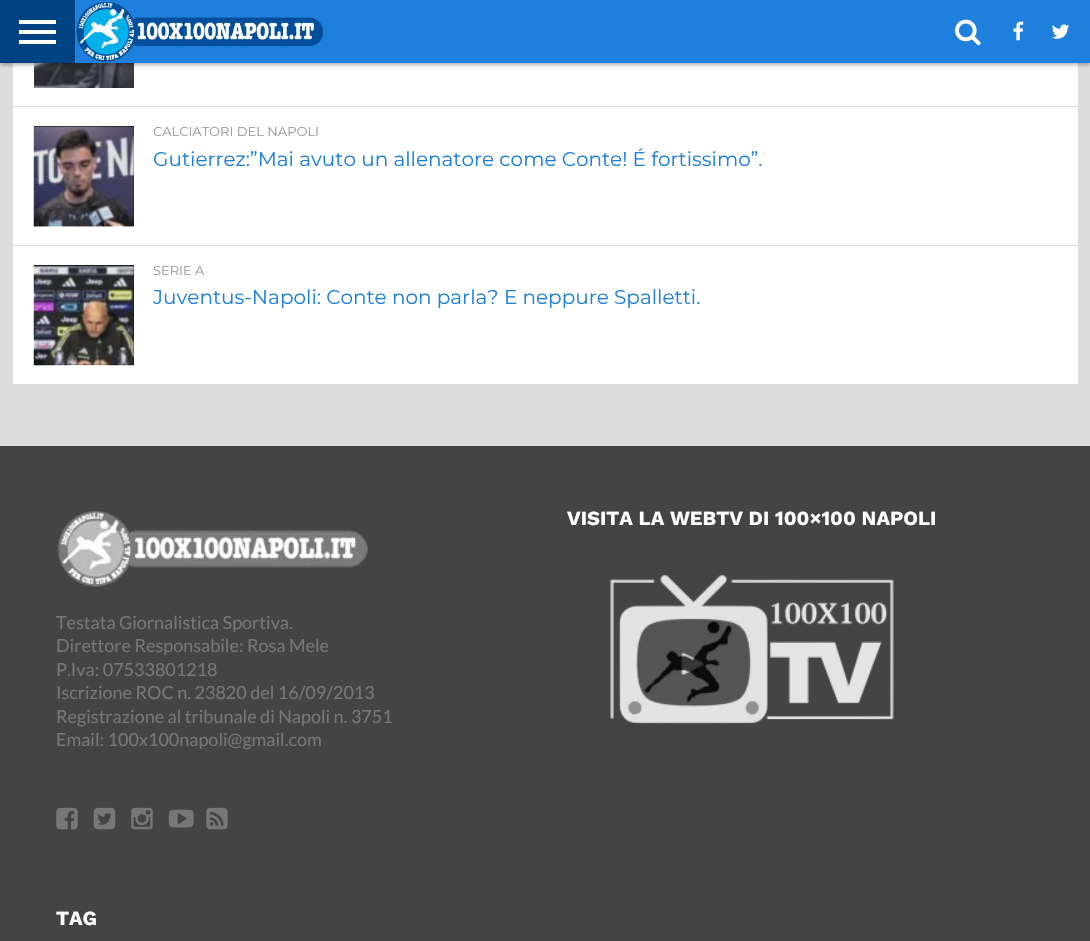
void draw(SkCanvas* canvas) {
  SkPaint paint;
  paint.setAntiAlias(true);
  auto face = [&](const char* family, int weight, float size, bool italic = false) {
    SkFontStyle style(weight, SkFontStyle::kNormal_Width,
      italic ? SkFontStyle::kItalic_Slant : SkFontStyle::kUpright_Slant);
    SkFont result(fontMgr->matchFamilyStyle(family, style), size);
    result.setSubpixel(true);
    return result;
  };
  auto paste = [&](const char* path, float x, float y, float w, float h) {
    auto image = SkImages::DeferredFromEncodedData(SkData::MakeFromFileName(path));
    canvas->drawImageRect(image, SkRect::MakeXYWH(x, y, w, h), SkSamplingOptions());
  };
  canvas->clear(0xffdddddd);
  paint.setColor(0xffffffff);
  canvas->drawRect(SkRect::MakeXYWH(13, 63, 1065, 321), paint);
  paste("img/5.png", 34, 63, 100, 25);
  paint.setColor(0x4d000000);
  paint.setMaskFilter(SkMaskFilter::MakeBlur(kNormal_SkBlurStyle, 2));
  canvas->drawRect(SkRect::MakeXYWH(0, 3, 1090, 62), paint);
  paint.setMaskFilter(nullptr);
  {
    const struct { float x, y, w, h; SkColor color; } items[] = {
      {75, 0, 1015, 63, 0xff1e7fdd},
      {0, 0, 75, 63, 0xff014382},
      {19, 20, 37, 4, 0xffffffff},
      {19, 30, 37, 4, 0xffffffff},
      {19, 40, 37, 4, 0xffffffff},
    };
    for (auto [x, y, w, h, color] : items) {
      paint.setColor(color);
      canvas->drawRect(SkRect::MakeXYWH(x, y, w, h), paint);
    }
  }
  paste("img/1.png", 76, 2, 247, 60);
  paste("img/2.png", 955, 19, 26, 27);
  paste("img/3.png", 1013, 21, 11, 20);
  paste("img/4.png", 1052, 24, 18, 15);
  paint.setColor(0xffdddddd);
  canvas->drawRect(SkRect::MakeXYWH(13, 106, 1065, 1), paint);
  paint.setColor(0xff000000);
  canvas->drawRect(SkRect::MakeXYWH(34, 126, 100, 100), paint);
  paste("img/6.png", 33, 126, 101, 101);
  paint.setColor(0xffdddddd);
  canvas->drawRect(SkRect::MakeXYWH(13, 245, 1065, 1), paint);
  paint.setColor(0xff000000);
  canvas->drawRect(SkRect::MakeXYWH(34, 265, 100, 100), paint);
  paste("img/7.png", 33, 264, 101, 102);
  paint.setColor(0xff444444);
  canvas->drawRect(SkRect::MakeXYWH(0, 446, 1090, 495), paint);
  paste("img/8.png", 609, 575, 285, 149);
  paste("img/9.png", 57, 511, 311, 76);
  paste("img/10.png", 56, 807, 22, 23);
  paste("img/11.png", 93, 807, 23, 23);
  paste("img/12.png", 131, 807, 22, 23);
  paste("img/13.png", 168, 809, 26, 19);
  paste("img/14.png", 206, 807, 22, 23);
  auto f0 = face("Montserrat", 400, 13);
  paint.setColor(0xff999999);
  canvas->drawString("CALCIATORI DEL NAPOLI", 153, 136, f0, paint);
  auto f1 = face("Montserrat", 400, 20);
  paint.setColor(0xff1e7fdd);
  canvas->drawString("Gutierrez:”Mai avuto un allenatore come Conte! É fortissimo”.", 153, 166, f1, paint);
  paint.setColor(0xff999999);
  canvas->drawString("SERIE A", 153, 275, f0, paint);
  paint.setColor(0xff1e7fdd);
  canvas->drawString("Juventus-Napoli: Conte non parla? E neppure Spalletti.", 153, 304, f1, paint);
  auto f2 = face("Work Sans", 700, 20);
  paint.setColor(0xffffffff);
  canvas->drawString("VISITA LA WEBTV DI 100×100 NAPOLI", 567, 525, f2, paint);
  auto f3 = face("Lato", 400, 18);
  paint.setColor(0xff777777);
  {
    const struct { const char* s; float x, y; } items[] = {
      {"Testata Giornalistica Sportiva.", 56, 629},
      {"Direttore Responsabile: Rosa Mele", 56, 652},
      {"P.Iva: 07533801218", 56, 676},
      {"Iscrizione ROC n. 23820 del 16/09/2013", 56, 699},
      {"Registrazione al tribunale di Napoli n. 3751", 56, 723},
      {"Email: 100x100napoli@gmail.com", 56, 746},
    };
    for (auto [s, x, y] : items) {
      canvas->drawString(s, x, y, f3, paint);
    }
  }
  paint.setColor(0xffffffff);
  canvas->drawString("TAG", 56, 925, f2, paint);
}
